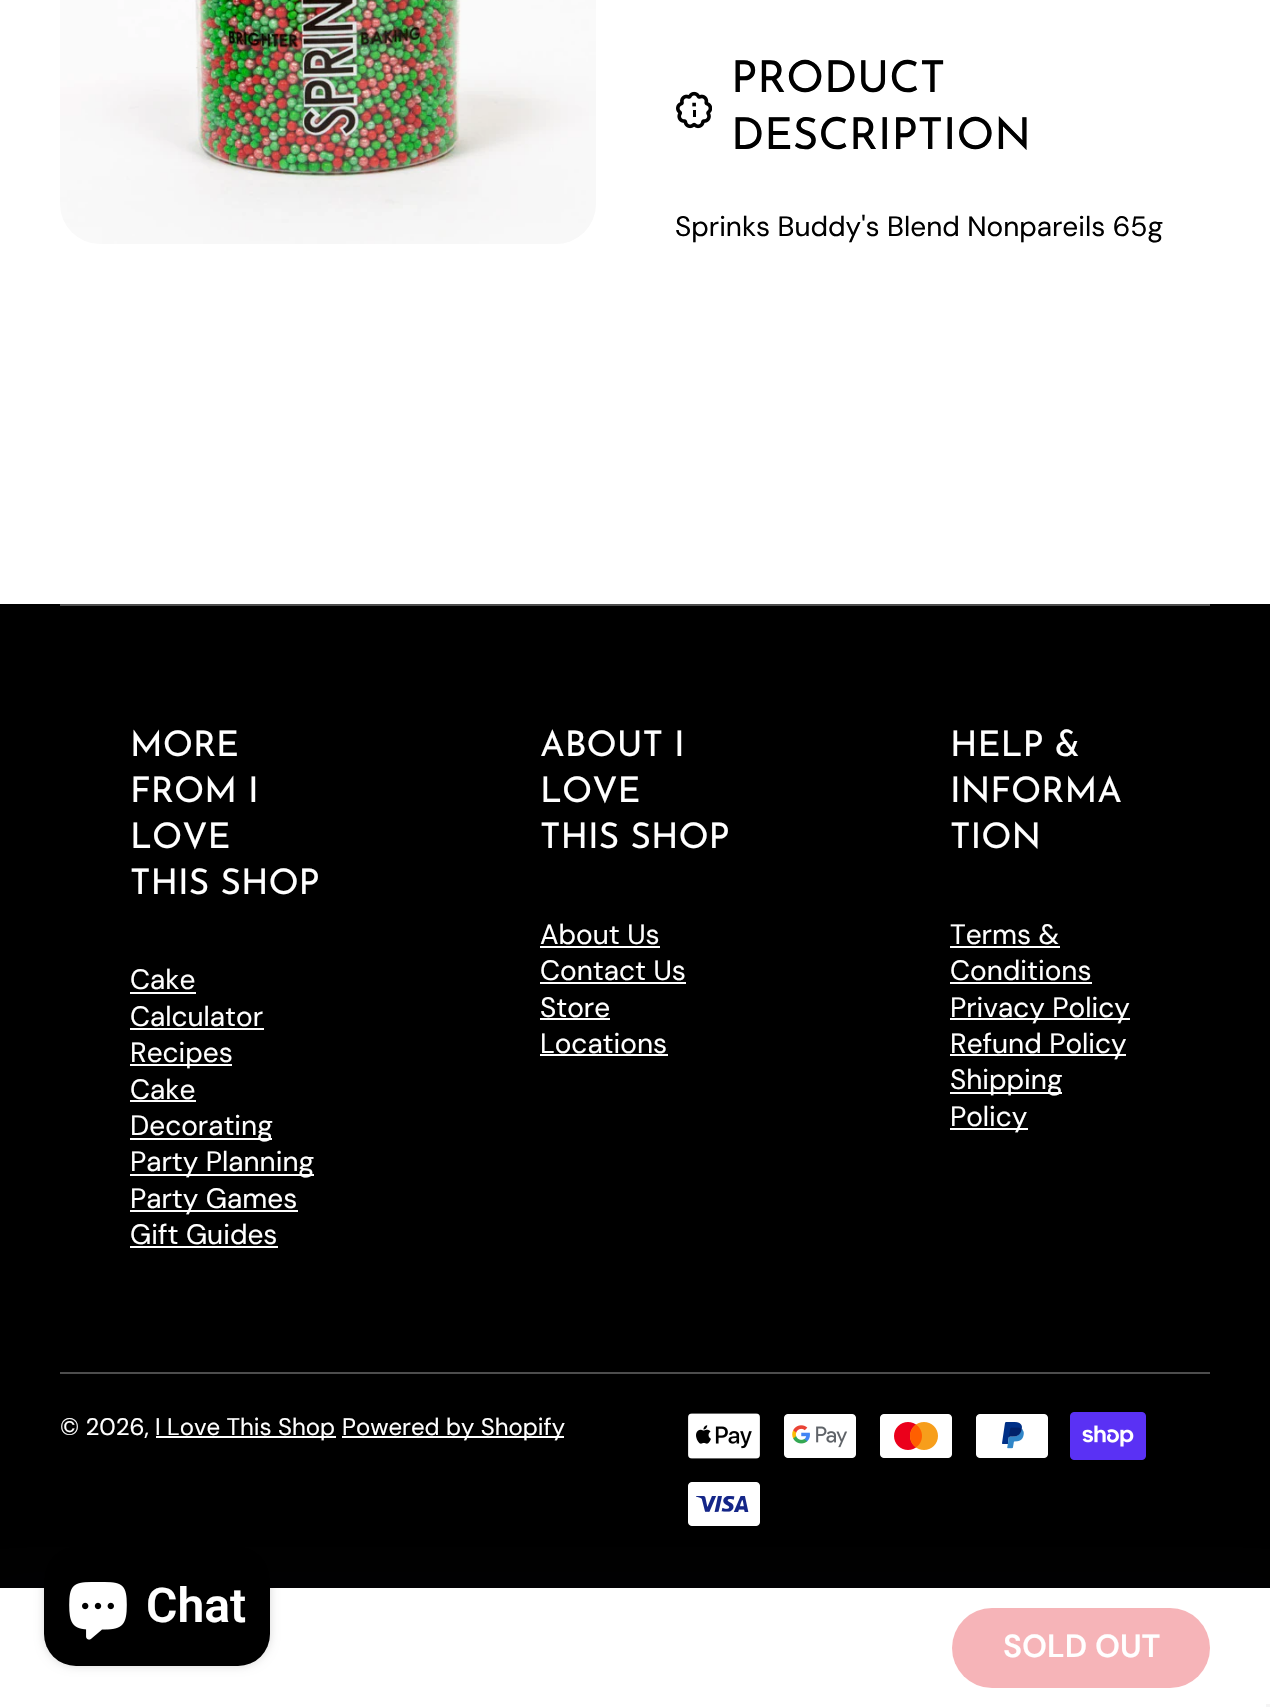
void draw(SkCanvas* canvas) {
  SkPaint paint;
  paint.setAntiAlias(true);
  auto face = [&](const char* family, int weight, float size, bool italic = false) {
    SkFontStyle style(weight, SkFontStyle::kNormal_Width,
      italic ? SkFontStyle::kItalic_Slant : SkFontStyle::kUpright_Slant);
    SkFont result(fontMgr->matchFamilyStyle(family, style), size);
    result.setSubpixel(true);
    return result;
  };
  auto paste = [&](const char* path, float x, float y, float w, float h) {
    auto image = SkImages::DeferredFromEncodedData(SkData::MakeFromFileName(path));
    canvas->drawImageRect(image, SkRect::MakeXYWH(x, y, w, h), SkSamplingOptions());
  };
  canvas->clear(0xffffffff);
  paste("img/1.png", 60, 0, 536, 244);
  paste("img/2.png", 676, 91, 36, 38);
  paint.setColor(0xff000000);
  canvas->drawRect(SkRect::MakeXYWH(0, 604, 1270, 984), paint);
  paint.setColor(0x21161345);
  paint.setMaskFilter(SkMaskFilter::MakeBlur(kNormal_SkBlurStyle, 20));
  canvas->drawRect(SkRect::MakeXYWH(0, 1596, 1270, 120), paint);
  paint.setMaskFilter(nullptr);
  paint.setColor(0xffffffff);
  canvas->drawRect(SkRect::MakeXYWH(0, 1588, 1270, 119), paint);
  paint.setColor(0xfff6b4b8);
  canvas->drawRoundRect(SkRect::MakeXYWH(952, 1608, 258, 80), 40, 40, paint);
  {
    const struct { float x, y, w, h; SkColor color; } items[] = {
      {60, 604, 1150, 2, 0xff4d4d4d},
      {130, 992, 66, 2, 0xffffffff},
      {130, 1028, 134, 2, 0xffffffff},
      {130, 1064, 102, 2, 0xffffffff},
      {130, 1100, 66, 2, 0xffffffff},
      {130, 1138, 142, 2, 0xffffffff},
      {130, 1174, 184, 2, 0xffffffff},
      {130, 1210, 168, 2, 0xffffffff},
      {130, 1246, 148, 2, 0xffffffff},
      {540, 946, 120, 2, 0xffffffff},
      {540, 982, 146, 2, 0xffffffff},
      {540, 1018, 70, 2, 0xffffffff},
      {540, 1054, 128, 2, 0xffffffff},
      {950, 946, 110, 2, 0xffffffff},
      {950, 982, 142, 2, 0xffffffff},
      {950, 1018, 180, 2, 0xffffffff},
      {950, 1054, 176, 2, 0xffffffff},
      {950, 1092, 112, 2, 0xffffffff},
      {950, 1128, 78, 2, 0xffffffff},
      {60, 1372, 1150, 2, 0xff4d4d4d},
      {156, 1436, 180, 2, 0xffffffff},
      {342, 1436, 222, 2, 0xffffffff},
    };
    for (auto [x, y, w, h, color] : items) {
      paint.setColor(color);
      canvas->drawRect(SkRect::MakeXYWH(x, y, w, h), paint);
    }
  }
  paste("img/3.png", 688, 1413, 72, 46);
  paste("img/4.png", 784, 1414, 72, 44);
  paste("img/5.png", 880, 1414, 72, 44);
  paste("img/6.png", 976, 1414, 72, 44);
  paste("img/7.png", 1070, 1412, 76, 48);
  paste("img/8.png", 688, 1482, 72, 44);
  paint.setColor(0x26000000);
  paint.setMaskFilter(SkMaskFilter::MakeBlur(kNormal_SkBlurStyle, 5));
  canvas->drawRoundRect(SkRect::MakeXYWH(44, 1546, 226, 120), 32, 32, paint);
  paint.setMaskFilter(nullptr);
  paint.setColor(0xff000000);
  canvas->drawRoundRect(SkRect::MakeXYWH(44, 1546, 226, 120), 32, 32, paint);
  paste("img/9.png", 69, 1582, 58, 58);
  paint.setColor(0xfff5f5f5);
  canvas->drawRect(SkRect::MakeXYWH(1266, 1704, 4, 3), paint);
  auto f0 = face("Josefin Sans", 400, 44);
  paint.setColor(0xff000000);
  canvas->drawString("PRODUCT", 731, 92, f0, paint);
  canvas->drawString("DESCRIPTION", 731, 149, f0, paint);
  auto f1 = face("DM Sans", 400, 28);
  canvas->drawString("Sprinks Buddy's Blend Nonpareils 65g", 675, 236, f1, paint);
  auto f2 = face("DM Sans", 600, 32);
  paint.setColor(0xffffffff);
  canvas->drawString("SOLD OUT", 1003, 1657, f2, paint);
  auto f3 = face("Josefin Sans", 400, 35.25f);
  {
    const struct { const char* s; float x, y; } items[] = {
      {"MORE", 130, 756},
      {"FROM I", 130, 802},
      {"LOVE", 130, 848},
      {"THIS SHOP", 130, 894},
    };
    for (auto [s, x, y] : items) {
      canvas->drawString(s, x, y, f3, paint);
    }
  }
  {
    const struct { const char* s; float x, y; } items[] = {
      {"Cake", 130, 989},
      {"Calculator", 130, 1026},
      {"Recipes", 130, 1062},
      {"Cake", 130, 1099},
      {"Decorating", 130, 1135},
      {"Party Planning", 130, 1171},
      {"Party Games", 130, 1208},
      {"Gift Guides", 130, 1244},
    };
    for (auto [s, x, y] : items) {
      canvas->drawString(s, x, y, f1, paint);
    }
  }
  {
    const struct { const char* s; float x, y; } items[] = {
      {"ABOUT I", 540, 756},
      {"LOVE", 540, 802},
      {"THIS SHOP", 540, 848},
    };
    for (auto [s, x, y] : items) {
      canvas->drawString(s, x, y, f3, paint);
    }
  }
  {
    const struct { const char* s; float x, y; } items[] = {
      {"About Us", 540, 944},
      {"Contact Us", 540, 980},
      {"Store", 540, 1017},
      {"Locations", 540, 1053},
    };
    for (auto [s, x, y] : items) {
      canvas->drawString(s, x, y, f1, paint);
    }
  }
  {
    const struct { const char* s; float x, y; } items[] = {
      {"HELP &", 950, 756},
      {"INFORMA", 950, 802},
      {"TION", 950, 848},
    };
    for (auto [s, x, y] : items) {
      canvas->drawString(s, x, y, f3, paint);
    }
  }
  {
    const struct { const char* s; float x, y; } items[] = {
      {"Terms &", 950, 944},
      {"Conditions", 950, 980},
      {"Privacy Policy", 950, 1017},
      {"Refund Policy", 950, 1053},
      {"Shipping", 950, 1089},
      {"Policy", 950, 1126},
    };
    for (auto [s, x, y] : items) {
      canvas->drawString(s, x, y, f1, paint);
    }
  }
  auto f4 = face("DM Sans", 400, 24);
  {
    const struct { const char* s; float x, y; } items[] = {
      {"© 2026,", 60, 1435},
      {"I Love This Shop", 155, 1435},
      {"Powered by Shopify", 342, 1435},
    };
    for (auto [s, x, y] : items) {
      canvas->drawString(s, x, y, f4, paint);
    }
  }
  auto f5 = face("Roboto", 600, 48);
  canvas->drawString("Chat", 146, 1622, f5, paint);
}
